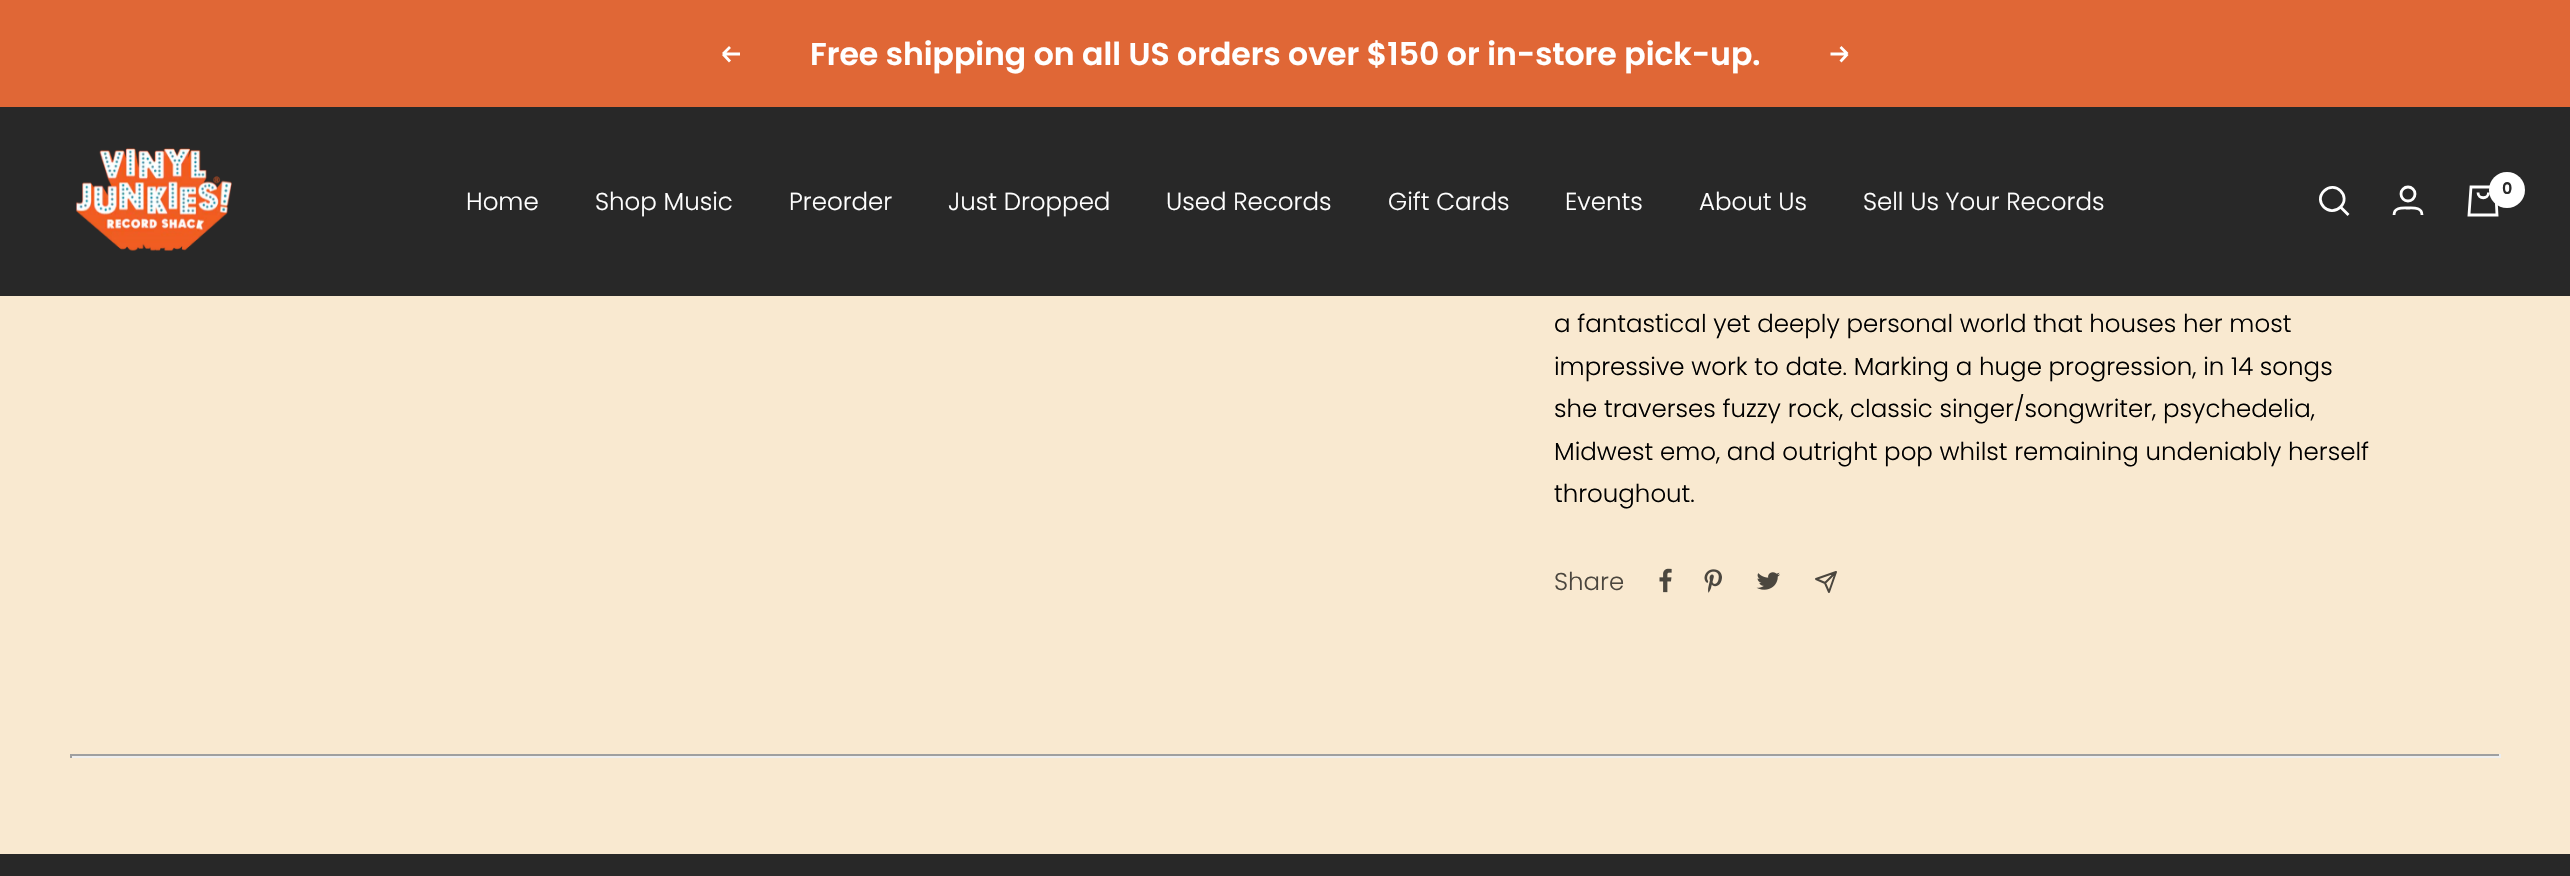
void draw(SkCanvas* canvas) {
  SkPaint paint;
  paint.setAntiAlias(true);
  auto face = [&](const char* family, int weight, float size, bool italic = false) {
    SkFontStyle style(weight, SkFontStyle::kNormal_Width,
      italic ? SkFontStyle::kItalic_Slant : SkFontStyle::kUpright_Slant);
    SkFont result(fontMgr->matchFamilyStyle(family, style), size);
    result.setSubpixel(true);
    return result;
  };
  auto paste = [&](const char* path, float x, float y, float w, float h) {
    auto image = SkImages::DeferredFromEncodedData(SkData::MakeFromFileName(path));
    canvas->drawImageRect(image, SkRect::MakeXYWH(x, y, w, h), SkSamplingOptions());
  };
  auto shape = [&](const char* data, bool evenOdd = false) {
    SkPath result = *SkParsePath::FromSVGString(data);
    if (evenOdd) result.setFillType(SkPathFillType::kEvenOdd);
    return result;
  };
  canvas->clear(0xfff9e9d0);
  paint.setColor(0xffe06736);
  canvas->drawRect(SkRect::MakeXYWH(0, 0, 2570, 107), paint);
  paint.setStroke(true);
  paint.setStrokeWidth(2.8f);
  paint.setColor(0xffffffff);
  canvas->drawPath(shape("M740 54H723M723 54L730 61.5M723 54L730 47"), paint);
  canvas->drawPath(shape("M1830.5 54H1847.5M1847.5 54L1840.5 61.5M1847.5 54L1840.5 47"), paint);
  paint.setStroke(false);
  paint.setColor(0xff282828);
  canvas->drawRect(SkRect::MakeXYWH(0, 107, 2570, 189), paint);
  paste("img/1.png", 76, 148, 156, 103);
  paint.setStroke(true);
  paint.setColor(0xffffffff);
  canvas->drawPath(shape("M2340.5 207C2351.5 196 2335 180 2324 191C2313 202 2329.5 218 2340.5 207ZM2340.5 207L2348.5 215"), paint);
  canvas->drawCircle(2408, 194, 7, paint);
  canvas->drawPath(shape("M2394 215C2394 207 2402.5 208 2408 208C2413.5 208 2422 207 2422 215"), paint);
  canvas->drawPath(shape("M2471 187H2495.5L2497 215H2469ZM2478 192.5C2478 199.5 2488.5 199.5 2488.5 192.5"), paint);
  paint.setStroke(false);
  canvas->drawCircle(2507, 190, 18, paint);
  paste("img/2.png", 1659, 568, 13, 25);
  paste("img/3.png", 1704, 569, 18, 24);
  paste("img/4.png", 1756, 572, 24, 18);
  paint.setStroke(true);
  paint.setStrokeWidth(2);
  paint.setStrokeCap(SkPaint::kRound_Cap);
  paint.setStrokeJoin(SkPaint::kRound_Join);
  paint.setColor(0xff4b463e);
  canvas->drawPath(shape("M1836 572L1829 592L1825 583M1836 572L1816 579L1825 583M1836 572L1825 583"), paint);
  paint.setStroke(false);
  {
    const struct { float x, y, w, h; SkColor color; } items[] = {
      {70, 754, 2431, 2, 0xff9f9f9f},
      {2499, 754, 2, 4, 0xffeeeeee},
      {70, 756, 2431, 2, 0xffeeeeee},
      {70, 754, 2, 4, 0xff9f9f9f},
      {0, 854, 2570, 22, 0xff282828},
    };
    for (auto [x, y, w, h, color] : items) {
      paint.setColor(color);
      canvas->drawRect(SkRect::MakeXYWH(x, y, w, h), paint);
    }
  }
  auto f0 = face("Poppins", 600, 31.5f);
  paint.setColor(0xffffffff);
  canvas->drawString("Free shipping on all US orders over $150 or in-store pick-up.", 810, 65, f0, paint);
  auto f1 = face("Poppins", 600, 16);
  paint.setColor(0xff282828);
  canvas->drawString("0", 2502, 194, f1, paint);
  auto f2 = face("Poppins", 300, 24.5f);
  paint.setColor(0xffffffff);
  {
    const struct { const char* s; float x, y; } items[] = {
      {"Home", 466, 210},
      {"Shop Music", 595, 210},
      {"Preorder", 789, 210},
      {"Just Dropped", 948, 210},
      {"Used Records", 1166, 210},
      {"Gift Cards", 1388, 210},
      {"Events", 1565, 210},
      {"About Us", 1699, 210},
      {"Sell Us Your Records", 1863, 210},
    };
    for (auto [s, x, y] : items) {
      canvas->drawString(s, x, y, f2, paint);
    }
  }
  paint.setColor(0xff000000);
  {
    const struct { const char* s; float x, y; } items[] = {
      {"a fantastical yet deeply personal world that houses her most", 1554, 332},
      {"impressive work to date. Marking a huge progression, in 14 songs", 1554, 375},
      {"she traverses fuzzy rock, classic singer/songwriter, psychedelia,", 1554, 417},
      {"Midwest emo, and outright pop whilst remaining undeniably herself", 1554, 460},
      {"throughout.", 1554, 502},
    };
    for (auto [s, x, y] : items) {
      canvas->drawString(s, x, y, f2, paint);
    }
  }
  paint.setColor(0xff4b463e);
  canvas->drawString("Share", 1554, 590, f2, paint);
}
